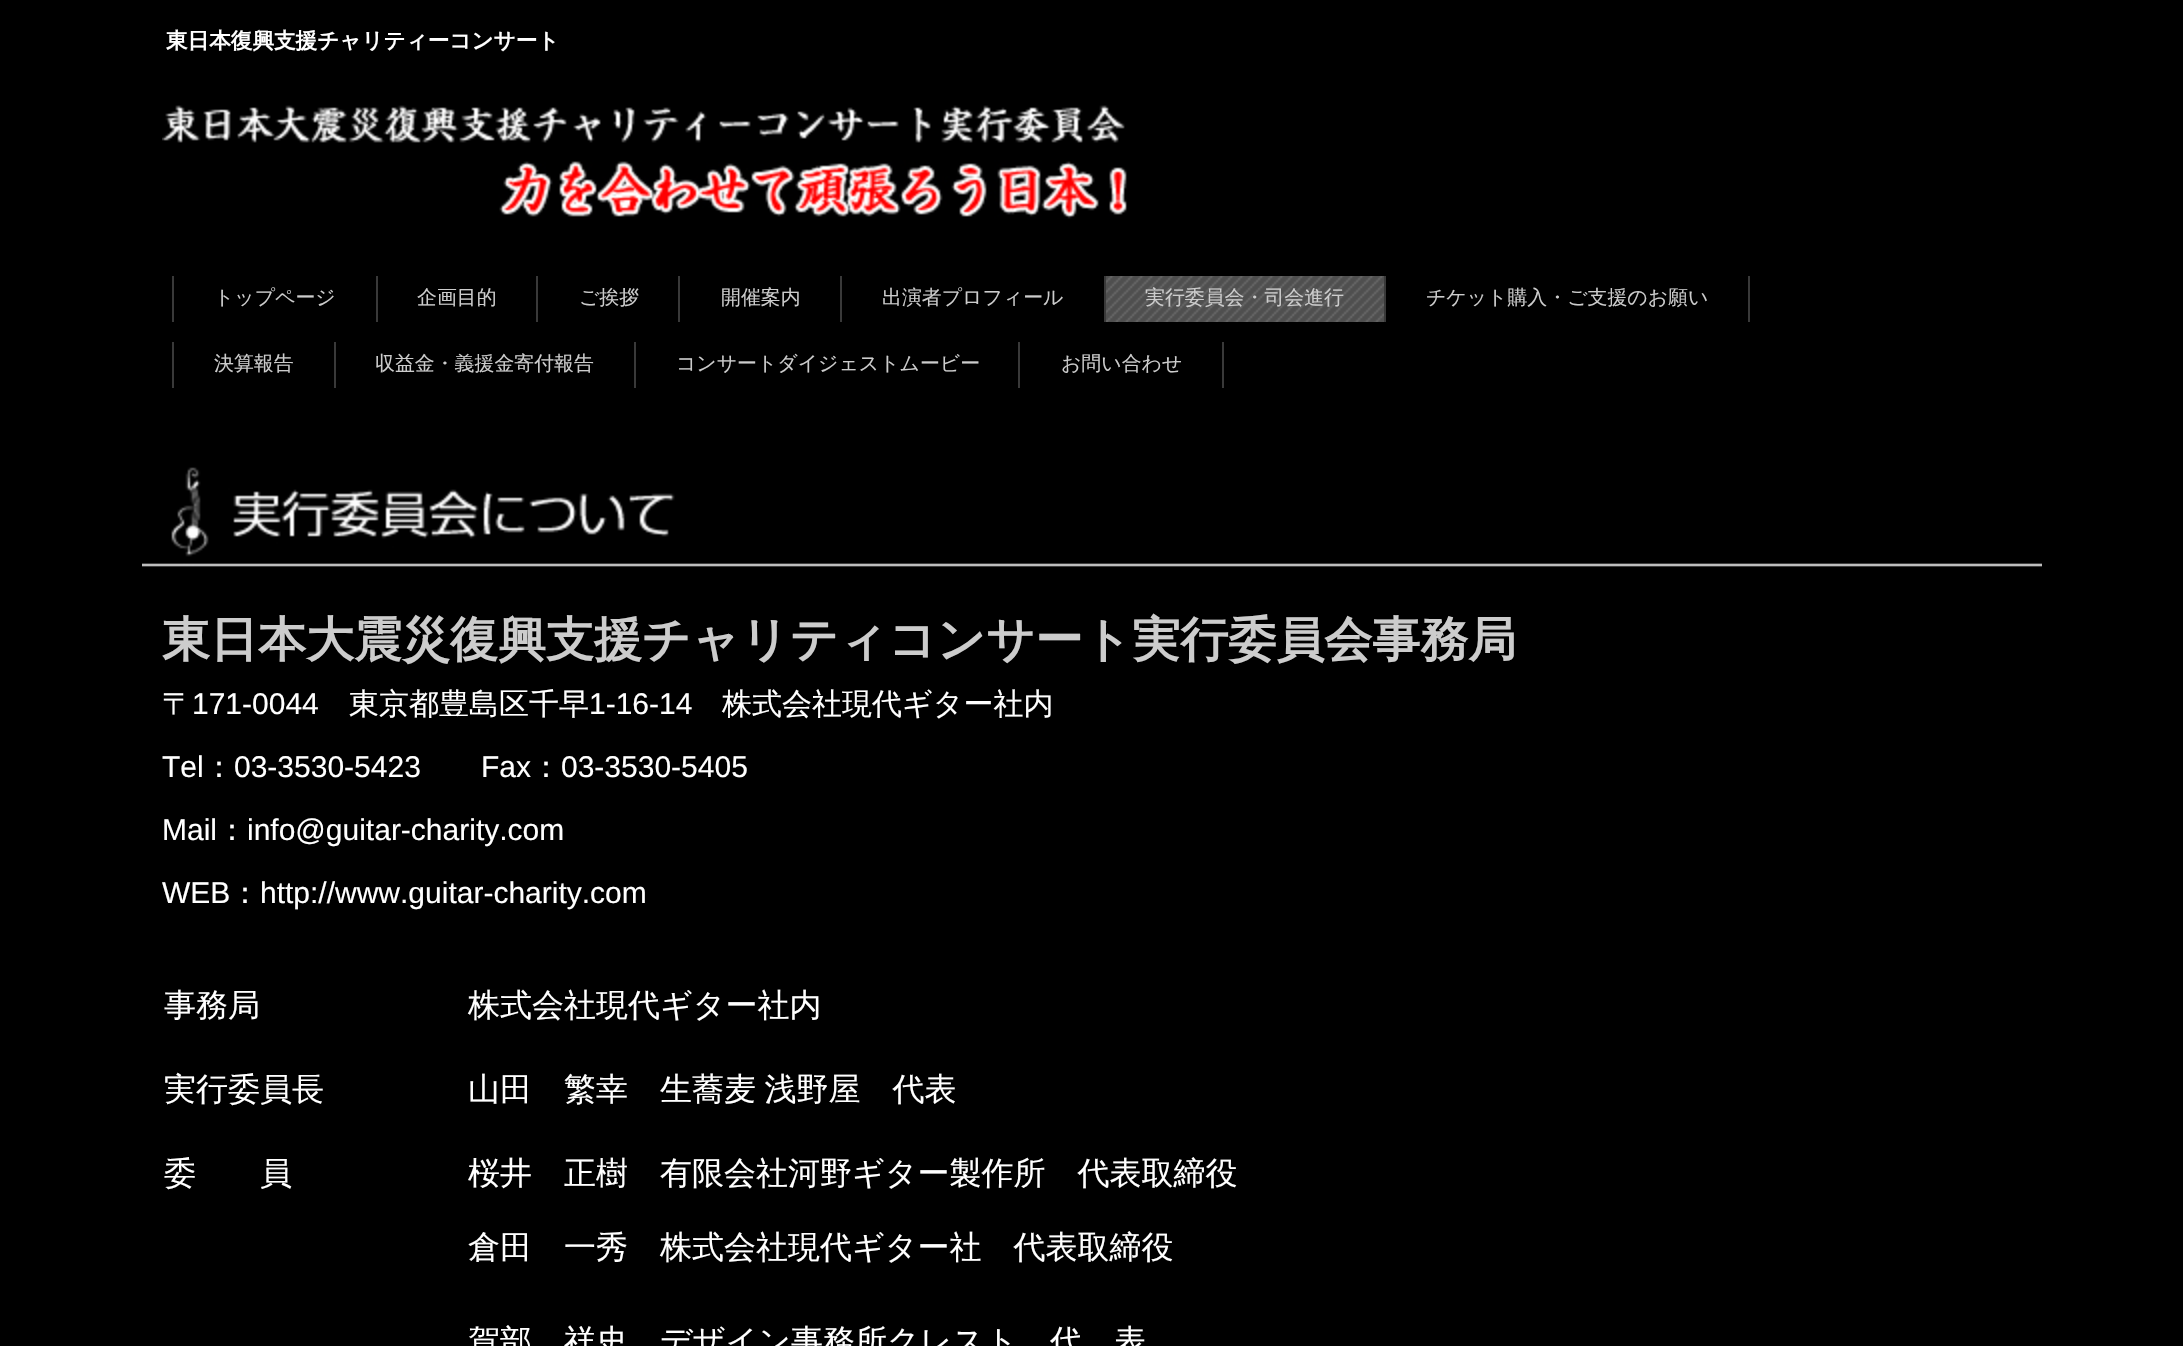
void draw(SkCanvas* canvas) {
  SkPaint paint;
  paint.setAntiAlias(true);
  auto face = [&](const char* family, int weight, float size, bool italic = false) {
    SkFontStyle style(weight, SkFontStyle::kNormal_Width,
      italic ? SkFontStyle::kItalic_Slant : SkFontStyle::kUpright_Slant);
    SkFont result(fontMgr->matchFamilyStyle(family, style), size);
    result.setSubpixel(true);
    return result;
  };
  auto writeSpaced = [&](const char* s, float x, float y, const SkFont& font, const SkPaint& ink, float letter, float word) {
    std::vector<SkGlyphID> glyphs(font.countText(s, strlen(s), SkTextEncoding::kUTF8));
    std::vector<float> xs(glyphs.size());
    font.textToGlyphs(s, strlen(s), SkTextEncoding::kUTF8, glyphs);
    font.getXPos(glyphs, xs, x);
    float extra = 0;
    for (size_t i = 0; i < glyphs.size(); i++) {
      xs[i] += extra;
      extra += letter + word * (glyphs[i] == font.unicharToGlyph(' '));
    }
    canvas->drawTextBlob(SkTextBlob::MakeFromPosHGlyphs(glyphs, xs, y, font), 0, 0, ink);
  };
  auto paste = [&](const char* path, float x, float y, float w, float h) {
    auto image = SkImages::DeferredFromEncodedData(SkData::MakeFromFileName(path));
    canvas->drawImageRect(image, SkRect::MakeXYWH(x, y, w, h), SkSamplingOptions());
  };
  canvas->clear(0xff000000);
  paste("img/1.png", 162, 105, 965, 114);
  {
    const struct { float x, y, w, h; SkColor color; } items[] = {
      {376, 276, 2, 46, 0xff393939},
      {172, 276, 2, 46, 0xff393939},
      {536, 276, 2, 46, 0xff393939},
      {678, 276, 2, 46, 0xff393939},
      {840, 276, 2, 46, 0xff393939},
      {1104, 276, 2, 46, 0xff393939},
      {1384, 276, 2, 46, 0xff393939},
      {1106, 276, 278, 46, 0xff4f4f4f},
    };
    for (auto [x, y, w, h, color] : items) {
      paint.setColor(color);
      canvas->drawRect(SkRect::MakeXYWH(x, y, w, h), paint);
    }
  }
  paste("img/2.png", 1106, 276, 278, 46);
  {
    const struct { float x, y, w, h; SkColor color; } items[] = {
      {1748, 276, 2, 46, 0xff393939},
      {334, 342, 2, 46, 0xff393939},
      {172, 342, 2, 46, 0xff393939},
      {634, 342, 2, 46, 0xff393939},
      {1018, 342, 2, 46, 0xff393939},
      {1222, 342, 2, 46, 0xff393939},
    };
    for (auto [x, y, w, h, color] : items) {
      paint.setColor(color);
      canvas->drawRect(SkRect::MakeXYWH(x, y, w, h), paint);
    }
  }
  paste("img/3.png", 142, 467, 1900, 100);
  auto f0 = face("WenQuanYi Zen Hei", 700, 21.6f);
  paint.setColor(0xffffffff);
  canvas->drawString("東日本復興支援チャリティーコンサート", 166, 48, f0, paint);
  auto f1 = face("WenQuanYi Zen Hei", 500, 19.9f);
  paint.setColor(0xffcccccc);
  {
    const struct { const char* s; float x, y; } items[] = {
      {"トップページ", 214, 304},
      {"企画目的", 417, 304},
      {"ご挨拶", 579, 304},
      {"開催案内", 721, 304},
      {"出演者プロフィール", 882, 304},
      {"実行委員会・司会進行", 1145, 304},
      {"チケット購入・ご支援のお願い", 1426, 304},
      {"決算報告", 214, 370},
      {"収益金・義援金寄付報告", 375, 370},
      {"コンサートダイジェストムービー", 676, 370},
      {"お問い合わせ", 1061, 370},
    };
    for (auto [s, x, y] : items) {
      canvas->drawString(s, x, y, f1, paint);
    }
  }
  auto f2 = face("WenQuanYi Zen Hei", 700, 48);
  canvas->drawString("東日本大震災復興支援チャリティコンサート実行委員会事務局", 162, 656, f2, paint);
  auto f3 = face("WenQuanYi Zen Hei", 500, 30);
  paint.setColor(0xffffffff);
  canvas->drawString("〒", 162, 714, f3, paint);
  auto f4 = face("Liberation Sans", 400, 30);
  canvas->drawString("171-0044", 192, 714, f4, paint);
  canvas->drawString("東京都豊島区千早", 349, 714, f3, paint);
  canvas->drawString("1-16-14", 589, 714, f4, paint);
  canvas->drawString("株式会社現代ギター社内", 722, 714, f3, paint);
  canvas->drawString("Tel", 162, 777, f4, paint);
  canvas->drawString("：", 204, 777, f3, paint);
  canvas->drawString("03-3530-5423", 234, 777, f4, paint);
  canvas->drawString("Fax", 481, 777, f4, paint);
  canvas->drawString("：", 531, 777, f3, paint);
  canvas->drawString("03-3530-5405", 561, 777, f4, paint);
  canvas->drawString("Mail", 162, 840, f4, paint);
  canvas->drawString("：", 217, 840, f3, paint);
  canvas->drawString("info@guitar-charity.com", 247, 840, f4, paint);
  canvas->drawString("WEB", 162, 903, f4, paint);
  canvas->drawString("：", 230, 903, f3, paint);
  canvas->drawString("http://www.guitar-charity.com", 260, 903, f4, paint);
  auto f5 = face("WenQuanYi Zen Hei", 500, 32);
  {
    const struct { const char* s; float x, y; } items[] = {
      {"事務局", 164, 1016},
      {"株式会社現代ギター社内", 468, 1016},
      {"実行委員長", 164, 1100},
    };
    for (auto [s, x, y] : items) {
      canvas->drawString(s, x, y, f5, paint);
    }
  }
  writeSpaced("山田　繁幸　生蕎麦 浅野屋　代表", 468, 1100, f5, paint, 0, -1);
  {
    const struct { const char* s; float x, y; } items[] = {
      {"委　　員", 164, 1184},
      {"桜井　正樹　有限会社河野ギター製作所　代表取締役", 468, 1184},
      {"倉田　一秀　株式会社現代ギター社　代表取締役", 468, 1258},
      {"賀部　祥史　デザイン事務所クレスト　代　表", 468, 1352},
    };
    for (auto [s, x, y] : items) {
      canvas->drawString(s, x, y, f5, paint);
    }
  }
}
